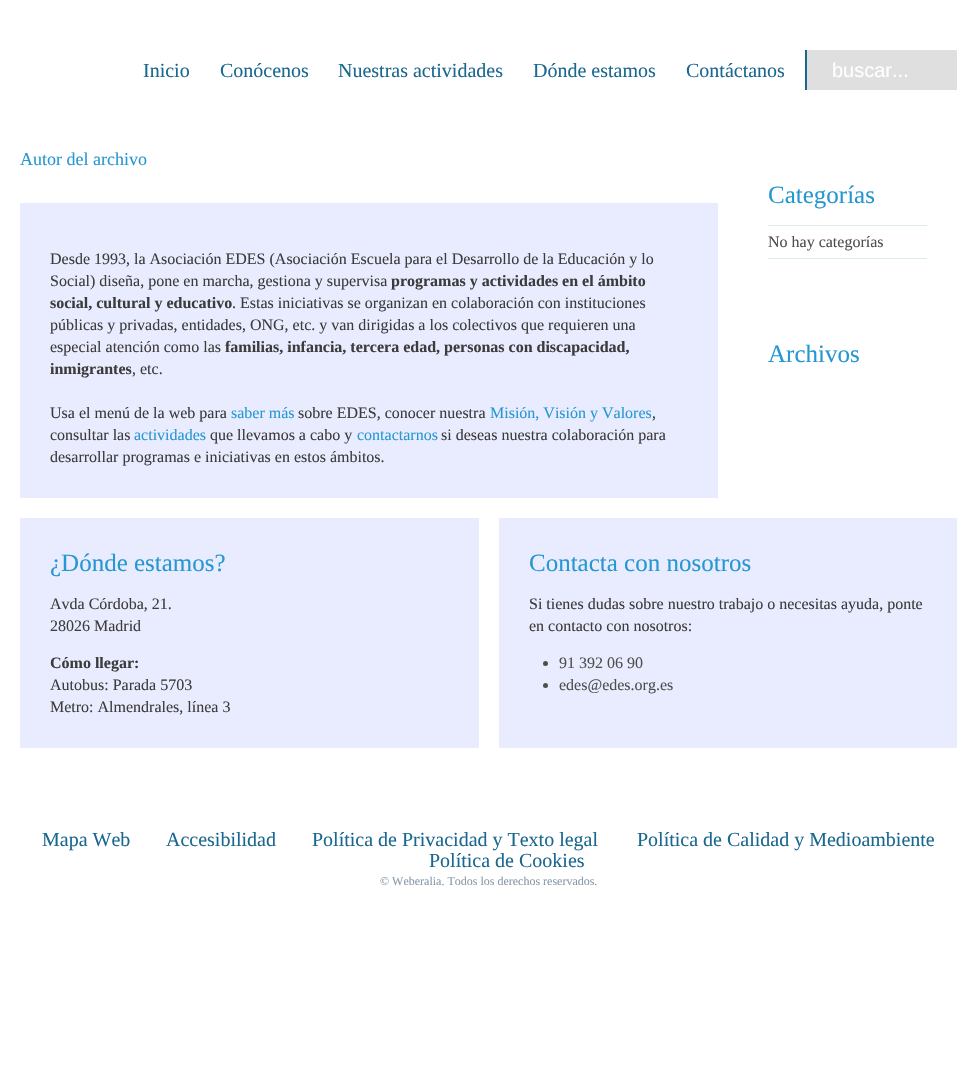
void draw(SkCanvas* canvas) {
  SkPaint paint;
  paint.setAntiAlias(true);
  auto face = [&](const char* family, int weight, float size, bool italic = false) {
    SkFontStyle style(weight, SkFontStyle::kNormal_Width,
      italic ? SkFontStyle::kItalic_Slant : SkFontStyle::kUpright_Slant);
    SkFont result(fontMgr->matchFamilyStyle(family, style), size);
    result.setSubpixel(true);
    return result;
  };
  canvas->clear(0xffffffff);
  {
    const struct { float x, y, w, h; SkColor color; } items[] = {
      {807, 50, 150, 40, 0xffdfdfdf},
      {805, 50, 2, 40, 0xff1a6890},
      {20, 203, 698, 295, 0xffe9ecff},
      {768, 225, 159, 1, 0xffddeaee},
      {768, 258, 159, 1, 0xffddeaee},
      {20, 518, 459, 230, 0xffe9ecff},
      {499, 518, 458, 230, 0xffe9ecff},
    };
    for (auto [x, y, w, h, color] : items) {
      paint.setColor(color);
      canvas->drawRect(SkRect::MakeXYWH(x, y, w, h), paint);
    }
  }
  paint.setColor(0xff4e4e4e);
  canvas->drawCircle(545.5f, 663.5f, 2.5f, paint);
  canvas->drawCircle(545.5f, 685.5f, 2.5f, paint);
  auto f0 = face("Liberation Serif", 400, 20);
  paint.setColor(0xff1a6890);
  {
    const struct { const char* s; float x, y; } items[] = {
      {"Inicio", 143, 77},
      {"Conócenos", 220, 77},
      {"Nuestras actividades", 338, 77},
      {"Dónde estamos", 533, 77},
      {"Contáctanos", 686, 77},
    };
    for (auto [s, x, y] : items) {
      canvas->drawString(s, x, y, f0, paint);
    }
  }
  auto f1 = face("Liberation Sans", 400, 20);
  paint.setColor(0xffffffff);
  canvas->drawString("buscar...", 832, 77, f1, paint);
  auto f2 = face("Liberation Serif", 400, 18);
  paint.setColor(0xff2697d1);
  canvas->drawString("Autor del archivo", 20, 165, f2, paint);
  auto f3 = face("Liberation Serif", 400, 16);
  paint.setColor(0xff3c3c3c);
  canvas->drawString("Desde 1993, la Asociación EDES (Asociación Escuela para el Desarrollo de la Educación y lo", 50, 264, f3, paint);
  canvas->drawString("Social) diseña, pone en marcha, gestiona y supervisa", 50, 286, f3, paint);
  auto f4 = face("Liberation Serif", 700, 16);
  canvas->drawString("programas y actividades en el ámbito", 391, 286, f4, paint);
  canvas->drawString("social, cultural y educativo", 50, 308, f4, paint);
  {
    const struct { const char* s; float x, y; } items[] = {
      {". Estas iniciativas se organizan en colaboración con instituciones", 232, 308},
      {"públicas y privadas, entidades, ONG, etc. y van dirigidas a los colectivos que requieren una", 50, 330},
      {"especial atención como las", 50, 352},
    };
    for (auto [s, x, y] : items) {
      canvas->drawString(s, x, y, f3, paint);
    }
  }
  canvas->drawString("familias, infancia, tercera edad, personas con discapacidad,", 225, 352, f4, paint);
  canvas->drawString("inmigrantes", 50, 374, f4, paint);
  canvas->drawString(", etc.", 132, 374, f3, paint);
  canvas->drawString("Usa el menú de la web para", 50, 418, f3, paint);
  paint.setColor(0xff2697d1);
  canvas->drawString("saber más", 231, 418, f3, paint);
  paint.setColor(0xff3c3c3c);
  canvas->drawString("sobre EDES, conocer nuestra", 298, 418, f3, paint);
  paint.setColor(0xff2697d1);
  canvas->drawString("Misión, Visión y Valores", 490, 418, f3, paint);
  paint.setColor(0xff3c3c3c);
  canvas->drawString(",", 652, 418, f3, paint);
  canvas->drawString("consultar las", 50, 440, f3, paint);
  paint.setColor(0xff2697d1);
  canvas->drawString("actividades", 134, 440, f3, paint);
  paint.setColor(0xff3c3c3c);
  canvas->drawString("que llevamos a cabo y", 210, 440, f3, paint);
  paint.setColor(0xff2697d1);
  canvas->drawString("contactarnos", 357, 440, f3, paint);
  paint.setColor(0xff3c3c3c);
  canvas->drawString("si deseas nuestra colaboración para", 441, 440, f3, paint);
  canvas->drawString("desarrollar programas e iniciativas en estos ámbitos.", 50, 462, f3, paint);
  auto f5 = face("Liberation Serif", 400, 25);
  paint.setColor(0xff2697d1);
  canvas->drawString("Categorías", 768, 203, f5, paint);
  paint.setColor(0xff4e4e4e);
  canvas->drawString("No hay categorías", 768, 247, f3, paint);
  paint.setColor(0xff2697d1);
  canvas->drawString("Archivos", 768, 362, f5, paint);
  canvas->drawString("¿Dónde estamos?", 50, 571, f5, paint);
  paint.setColor(0xff3c3c3c);
  canvas->drawString("Avda Córdoba, 21.", 50, 609, f3, paint);
  canvas->drawString("28026 Madrid", 50, 631, f3, paint);
  canvas->drawString("Cómo llegar:", 50, 668, f4, paint);
  canvas->drawString("Autobus: Parada 5703", 50, 690, f3, paint);
  canvas->drawString("Metro: Almendrales, línea 3", 50, 712, f3, paint);
  paint.setColor(0xff2697d1);
  canvas->drawString("Contacta con nosotros", 529, 571, f5, paint);
  paint.setColor(0xff3c3c3c);
  canvas->drawString("Si tienes dudas sobre nuestro trabajo o necesitas ayuda, ponte", 529, 609, f3, paint);
  canvas->drawString("en contacto con nosotros:", 529, 631, f3, paint);
  paint.setColor(0xff4e4e4e);
  canvas->drawString("91 392 06 90", 559, 668, f3, paint);
  canvas->drawString("edes@edes.org.es", 559, 690, f3, paint);
  paint.setColor(0xff1a6890);
  {
    const struct { const char* s; float x, y; } items[] = {
      {"Mapa Web", 42, 846},
      {"Accesibilidad", 166, 846},
      {"Política de Privacidad y Texto legal", 312, 846},
      {"Política de Calidad y Medioambiente", 637, 846},
      {"Política de Cookies", 429, 867},
    };
    for (auto [s, x, y] : items) {
      canvas->drawString(s, x, y, f0, paint);
    }
  }
  auto f6 = face("Liberation Serif", 400, 12);
  paint.setColor(0xff8699a9);
  canvas->drawString("© Weberalia. Todos los derechos reservados.", 380, 885, f6, paint);
}
